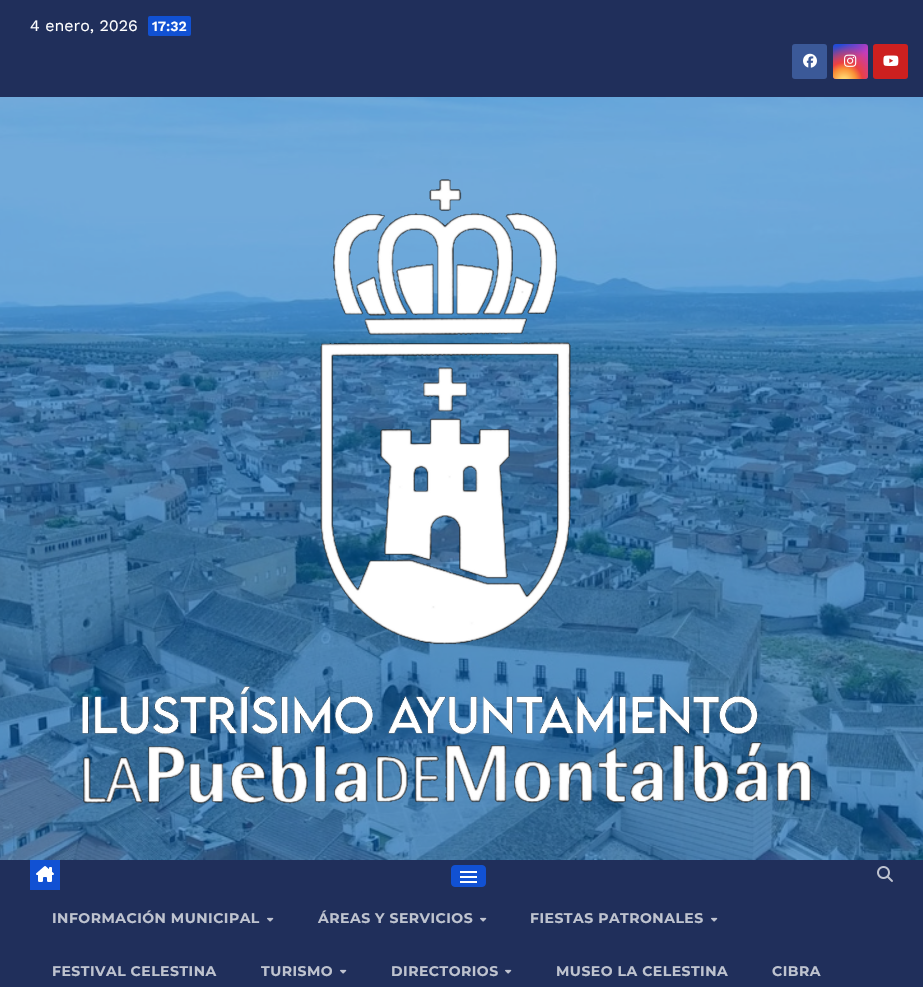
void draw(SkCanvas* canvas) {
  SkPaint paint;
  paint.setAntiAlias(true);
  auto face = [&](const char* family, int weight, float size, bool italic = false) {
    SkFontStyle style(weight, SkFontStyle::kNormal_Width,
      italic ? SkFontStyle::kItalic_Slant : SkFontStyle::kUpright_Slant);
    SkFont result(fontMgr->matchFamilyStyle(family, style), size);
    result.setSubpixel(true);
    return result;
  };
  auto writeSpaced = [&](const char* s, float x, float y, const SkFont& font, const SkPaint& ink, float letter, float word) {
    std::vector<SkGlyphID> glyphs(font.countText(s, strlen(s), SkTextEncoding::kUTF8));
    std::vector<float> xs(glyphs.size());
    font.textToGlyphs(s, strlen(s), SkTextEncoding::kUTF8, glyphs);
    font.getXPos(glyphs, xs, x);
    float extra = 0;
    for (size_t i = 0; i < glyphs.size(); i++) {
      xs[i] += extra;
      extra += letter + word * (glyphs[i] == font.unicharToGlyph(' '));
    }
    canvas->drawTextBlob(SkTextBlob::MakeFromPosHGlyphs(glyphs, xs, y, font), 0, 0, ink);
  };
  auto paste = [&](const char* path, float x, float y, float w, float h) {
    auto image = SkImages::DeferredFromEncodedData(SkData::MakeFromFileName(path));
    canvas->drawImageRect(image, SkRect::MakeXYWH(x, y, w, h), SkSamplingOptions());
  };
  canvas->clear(0xff202f5b);
  paint.setColor(0xff1151d3);
  canvas->drawRoundRect(SkRect::MakeXYWH(148, 16, 43, 20), 2, 2, paint);
  paint.setColor(0xff3b5998);
  canvas->drawRoundRect(SkRect::MakeXYWH(792, 44, 35, 35), 3, 3, paint);
  paste("img/1.png", 803, 53, 14, 15);
  {
    const SkColor colors[] = {0xff234bd7, 0xffc33cbe};
    const float stops[] = {0.12f, 0.58f};
    const SkPoint ends[] = {{833, 44}, {868, 79}};
    paint.setShader(SkGradientShader::MakeLinear(ends, colors, stops, 2, SkTileMode::kClamp));
    paint.setAlpha(255);
  }
  canvas->drawRoundRect(SkRect::MakeXYWH(833, 44, 35, 35), 3, 3, paint);
  {
    const SkColor colors[] = {0xffffe17d, 0xffffcd69, 0xfffa9137, 0xffeb4141, 0x00eb4141};
    const float stops[] = {0, 0.1f, 0.28f, 0.42f, 0.82f};
    paint.setShader(SkGradientShader::MakeRadial({844, 81}, 44, colors, stops, 5, SkTileMode::kClamp));
    paint.setAlpha(255);
  }
  canvas->drawRoundRect(SkRect::MakeXYWH(833, 44, 35, 35), 3, 3, paint);
  paste("img/2.png", 844, 54, 13, 13);
  paint.setShader(nullptr);
  paint.setColor(0xffcd201f);
  canvas->drawRoundRect(SkRect::MakeXYWH(873, 44, 35, 35), 3, 3, paint);
  paste("img/3.png", 883, 55, 16, 11);
  paste("img/4.png", 0, 97, 923, 763);
  paste("img/5.png", 82, 179, 730, 625);
  paint.setColor(0xff1151d3);
  canvas->drawRect(SkRect::MakeXYWH(30, 860, 30, 30), paint);
  paste("img/6.png", 36, 866, 18, 16);
  canvas->drawRoundRect(SkRect::MakeXYWH(451.5f, 865.5f, 34, 21), 3.5f, 3.5f, paint);
  paint.setStroke(true);
  paint.setStrokeWidth(1);
  canvas->drawRoundRect(SkRect::MakeXYWH(451.5f, 865.5f, 34, 21), 3.5f, 3.5f, paint);
  paint.setStroke(false);
  {
    const struct { float x, y, w, h; SkColor color; } items[] = {
      {460, 871, 17, 2, 0xffffffff},
      {460, 876, 17, 2, 0xffffffff},
      {460, 881, 17, 2, 0xffffffff},
    };
    for (auto [x, y, w, h, color] : items) {
      paint.setColor(color);
      canvas->drawRect(SkRect::MakeXYWH(x, y, w, h), paint);
    }
  }
  paste("img/7.png", 877, 866, 16, 16);
  paste("img/8.png", 267, 917, 7, 5);
  paste("img/8.png", 480, 917, 7, 5);
  paste("img/8.png", 711, 917, 7, 5);
  paste("img/8.png", 340, 969, 7, 5);
  paste("img/8.png", 505, 969, 7, 5);
  auto f0 = face("Work Sans", 400, 16);
  canvas->drawString("4 enero, 2026", 30, 31, f0, paint);
  auto f1 = face("Work Sans", 600, 14);
  canvas->drawString("17:32", 152, 31, f1, paint);
  auto f2 = face("Montserrat", 700, 14);
  paint.setColor(0xffbec3cf);
  {
    const struct { const char* s; float x, y; } items[] = {
      {"INFORMACIÓN MUNICIPAL", 52, 923},
      {"ÁREAS Y SERVICIOS", 318, 923},
      {"FIESTAS PATRONALES", 530, 923},
      {"FESTIVAL CELESTINA", 52, 976},
      {"TURISMO", 261, 976},
      {"DIRECTORIOS", 391, 976},
      {"MUSEO LA CELESTINA", 556, 976},
      {"CIBRA", 772, 976},
    };
    for (auto [s, x, y] : items) {
      writeSpaced(s, x, y, f2, paint, 0.5f, 0);
    }
  }
}
